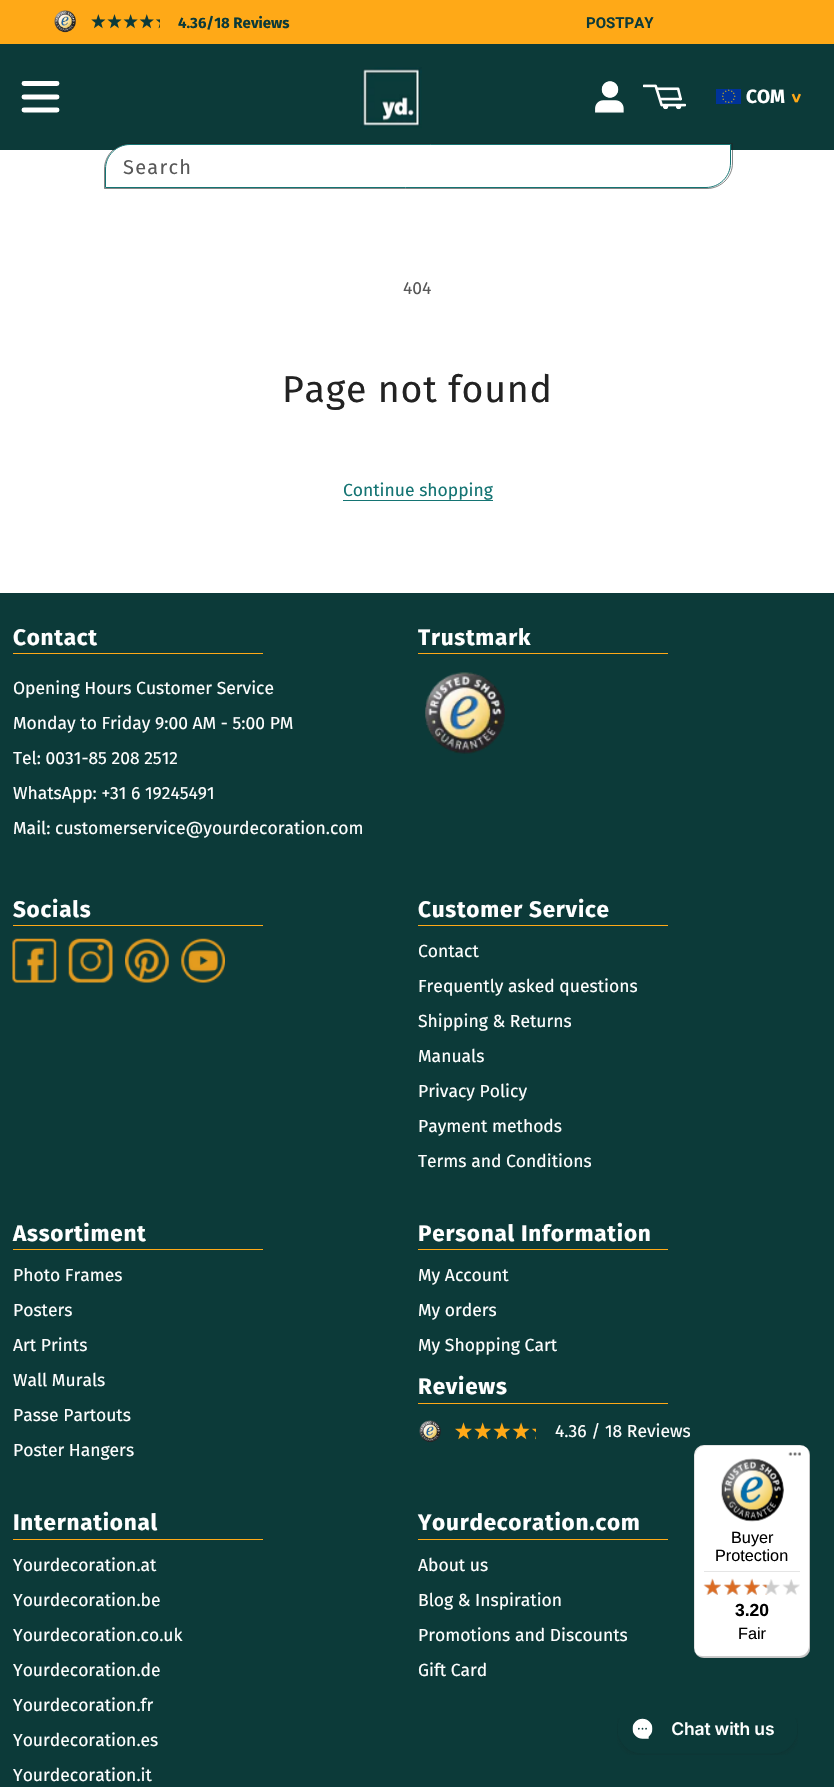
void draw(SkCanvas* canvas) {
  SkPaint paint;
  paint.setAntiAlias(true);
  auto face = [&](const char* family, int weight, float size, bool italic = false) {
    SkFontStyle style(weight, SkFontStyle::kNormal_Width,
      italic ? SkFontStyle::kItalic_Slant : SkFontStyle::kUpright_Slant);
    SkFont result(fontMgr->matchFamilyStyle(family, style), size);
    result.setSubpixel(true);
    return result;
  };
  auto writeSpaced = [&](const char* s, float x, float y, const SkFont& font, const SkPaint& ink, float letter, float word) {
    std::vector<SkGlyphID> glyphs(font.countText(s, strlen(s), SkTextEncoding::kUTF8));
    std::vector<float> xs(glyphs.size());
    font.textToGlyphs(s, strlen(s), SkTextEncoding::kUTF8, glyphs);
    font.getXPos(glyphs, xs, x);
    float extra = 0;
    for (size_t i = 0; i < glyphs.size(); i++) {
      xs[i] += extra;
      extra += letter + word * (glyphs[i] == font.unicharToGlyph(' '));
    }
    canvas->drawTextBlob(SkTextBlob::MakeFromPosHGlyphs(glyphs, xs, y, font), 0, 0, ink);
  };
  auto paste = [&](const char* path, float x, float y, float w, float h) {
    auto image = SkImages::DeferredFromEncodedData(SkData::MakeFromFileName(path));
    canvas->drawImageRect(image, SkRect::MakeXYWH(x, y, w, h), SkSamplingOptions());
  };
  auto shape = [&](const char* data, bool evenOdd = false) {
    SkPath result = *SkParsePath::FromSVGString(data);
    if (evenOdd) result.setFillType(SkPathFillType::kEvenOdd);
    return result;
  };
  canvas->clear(0xffffffff);
  paint.setColor(0xffffa917);
  canvas->drawRect(SkRect::MakeXYWH(0, 0, 834, 44), paint);
  paste("img/1.png", 54, 10, 22, 23);
  paste("img/2.png", 91, 14, 69, 15);
  paint.setColor(0xff0c3a39);
  canvas->drawRect(SkRect::MakeXYWH(0, 44, 834, 106), paint);
  paint.setStroke(true);
  paint.setStrokeWidth(4.9f);
  paint.setStrokeCap(SkPaint::kRound_Cap);
  paint.setColor(0xffffffff);
  canvas->drawPath(shape("M24 83.5H57M24 97H57M24 110H57"), paint);
  paste("img/3.png", 360, 67, 62, 62);
  paste("img/4.png", 595, 81, 29, 32);
  paste("img/5.png", 643, 84, 43, 26);
  paste("img/6.png", 716, 89, 25, 15);
  paint.setStrokeWidth(1);
  paint.setStrokeCap(SkPaint::kButt_Cap);
  paint.setColor(0x8c222222);
  canvas->drawPath(shape("M130 143.5H732.5V163C732.5 177 721 188.5 707 188.5H104.5V169C104.5 155 116 143.5 130 143.5Z"), paint);
  paint.setStroke(false);
  paint.setColor(0xffffffff);
  canvas->drawPath(shape("M130 144.5H730.5V163C730.5 176.5 719.5 187.5 706 187.5H105.5V169C105.5 155.5 116.5 144.5 130 144.5Z"), paint);
  paint.setStroke(true);
  paint.setColor(0xff147473);
  canvas->drawPath(shape("M130 144.5H730.5V163C730.5 176.5 719.5 187.5 706 187.5H105.5V169C105.5 155.5 116.5 144.5 130 144.5Z"), paint);
  paint.setStroke(false);
  {
    const struct { float x, y, w, h; SkColor color; } items[] = {
      {343, 500, 150, 1, 0xff147473},
      {0, 593, 834, 1194, 0xff0c3a39},
      {13, 653, 250, 1, 0xffffa917},
      {418, 653, 250, 1, 0xffffa917},
    };
    for (auto [x, y, w, h, color] : items) {
      paint.setColor(color);
      canvas->drawRect(SkRect::MakeXYWH(x, y, w, h), paint);
    }
  }
  paste("img/7.png", 425, 672, 80, 82);
  canvas->drawRect(SkRect::MakeXYWH(13, 925, 250, 1), paint);
  paste("img/8.png", 12, 938, 45, 45);
  paste("img/9.png", 68, 938, 45, 45);
  paste("img/10.png", 125, 938, 44, 45);
  paste("img/11.png", 181, 938, 44, 45);
  {
    const struct { float x, y, w, h; SkColor color; } items[] = {
      {418, 925, 250, 1, 0xffffa917},
      {13, 1249, 250, 1, 0xffffa917},
      {418, 1249, 250, 1, 0xffffa917},
      {418, 1403, 250, 1, 0xffffa917},
    };
    for (auto [x, y, w, h, color] : items) {
      paint.setColor(color);
      canvas->drawRect(SkRect::MakeXYWH(x, y, w, h), paint);
    }
  }
  paste("img/12.png", 419, 1420, 22, 22);
  paste("img/13.png", 455, 1422, 81, 18);
  canvas->drawRect(SkRect::MakeXYWH(13, 1539, 250, 1), paint);
  canvas->drawRect(SkRect::MakeXYWH(418, 1539, 250, 1), paint);
  paint.setColor(0xffffffff);
  canvas->drawRoundRect(SkRect::MakeXYWH(694, 1445, 116, 213), 10, 10, paint);
  paint.setColor(0x1a000000);
  canvas->drawPath(shape("M705 1446H801C804 1446 806 1447 808 1448C806 1446 803 1445 800 1445H704C698 1445 694 1449 694 1455V1648C694 1651 695 1654 698 1656C696 1654 695 1651 695 1649V1456C695 1451 699 1446 705 1446Z"), paint);
  paint.setColor(0x33000000);
  canvas->drawPath(shape("M696 1654C698 1656 701 1658 704 1658H800C806 1658 810 1654 810 1648V1455C810 1452 809 1449 807 1447C808 1449 809 1451 809 1454V1646C809 1652 804 1656 799 1656H702C700 1656 698 1655 696 1654Z"), paint);
  paint.setColor(0x33323232);
  canvas->drawPath(shape("M696 1655C698 1657 701 1658 704 1658H800C806 1658 810 1654 810 1648V1455C810 1452 809 1449 806 1447C808 1449 809 1452 809 1454V1647C809 1652 805 1657 799 1657H703C700 1657 698 1656 696 1655Z"), paint);
  paint.setColor(0x4dffffff);
  canvas->drawPath(shape("M695 1653C697 1656 700 1658 704 1658H800C806 1658 810 1654 810 1648V1455C810 1452 809 1449 806 1447C808 1449 809 1452 809 1454V1647C809 1652 805 1657 799 1657H703C700 1657 697 1655 695 1653Z"), paint);
  paste("img/14.png", 788, 1452, 13, 4);
  paste("img/15.png", 721, 1458, 63, 64);
  paint.setColor(0xffe5e5e5);
  canvas->drawRect(SkRect::MakeXYWH(704, 1571, 96, 1), paint);
  paste("img/20.png", 704, 1579, 17, 16);
  paste("img/16.png", 703, 1578, 18, 17);
  paste("img/21.png", 724, 1579, 17, 16);
  paste("img/17.png", 723, 1578, 19, 17);
  paste("img/22.png", 744, 1579, 16, 16);
  paste("img/18.png", 743, 1578, 17, 17);
  paste("img/23.png", 762, 1579, 18, 16);
  paste("img/19.png", 762, 1584, 5, 11);
  paste("img/24.png", 782, 1579, 18, 16);
  paste("img/25.png", 617, 1718, 181, 37);
  auto f0 = face("Fira Sans", 700, 15);
  paint.setColor(0xff0c3a39);
  canvas->drawString("4.36/18 Reviews", 178, 28, f0, paint);
  {
    const SkColor colors[] = {0x00ffa917, 0xffffa917};
    const float stops[] = {0.39f, 0.44f};
    const SkPoint ends[] = {{84, 22}, {178, 22}};
    paint.setShader(SkGradientShader::MakeLinear(ends, colors, stops, 2, SkTileMode::kClamp));
    paint.setAlpha(255);
  }
  canvas->drawRect(SkRect::MakeXYWH(177, 24, 1, 2), paint);
  auto f1 = face("Roboto", 700, 15);
  paint.setShader(nullptr);
  paint.setColor(0xff0c3a39);
  canvas->drawString("POSTPAY", 586, 28, f1, paint);
  auto f2 = face("Fira Sans", 700, 19);
  paint.setColor(0xffffffff);
  canvas->drawString("COM", 746, 103, f2, paint);
  paint.setColor(0xffffa917);
  canvas->save();
  canvas->rotate(90, 790, 93);
  canvas->drawString(">", 790, 93, f2, paint);
  canvas->restore();
  auto f3 = face("Fira Sans", 400, 20);
  paint.setColor(0xff595959);
  writeSpaced("Search", 123, 174, f3, paint, 1.25f, 0);
  auto f4 = face("Fira Sans", 400, 17.5f);
  canvas->drawString("404", 403, 294, f4, paint);
  auto f5 = face("Fira Sans", 400, 37.5f);
  paint.setColor(0xff222222);
  writeSpaced("Page not found", 282, 402, f5, paint, 0.75f, 0);
  paint.setColor(0xff147473);
  canvas->drawString("Continue shopping", 343, 496, f4, paint);
  auto f6 = face("Fira Sans", 700, 22.5f);
  paint.setColor(0xffffffff);
  writeSpaced("Contact", 13, 645, f6, paint, 0.75f, 0);
  {
    const struct { const char* s; float x, y; } items[] = {
      {"Opening Hours Customer Service", 13, 694},
      {"Monday to Friday 9:00 AM - 5:00 PM", 13, 729},
      {"Tel: 0031-85 208 2512", 13, 764},
      {"WhatsApp: +31 6 19245491", 13, 799},
      {"Mail: customerservice@yourdecoration.com", 13, 834},
    };
    for (auto [s, x, y] : items) {
      canvas->drawString(s, x, y, f4, paint);
    }
  }
  {
    const struct { const char* s; float x, y; } items[] = {
      {"Trustmark", 418, 645},
      {"Socials", 13, 917},
      {"Customer Service", 418, 917},
    };
    for (auto [s, x, y] : items) {
      writeSpaced(s, x, y, f6, paint, 0.75f, 0);
    }
  }
  {
    const struct { const char* s; float x, y; } items[] = {
      {"Contact", 418, 957},
      {"Frequently asked questions", 418, 992},
      {"Shipping & Returns", 418, 1027},
      {"Manuals", 418, 1062},
      {"Privacy Policy", 418, 1097},
      {"Payment methods", 418, 1132},
      {"Terms and Conditions", 418, 1167},
    };
    for (auto [s, x, y] : items) {
      canvas->drawString(s, x, y, f4, paint);
    }
  }
  writeSpaced("Assortiment", 13, 1241, f6, paint, 0.75f, 0);
  {
    const struct { const char* s; float x, y; } items[] = {
      {"Photo Frames", 13, 1281},
      {"Posters", 13, 1316},
      {"Art Prints", 13, 1351},
      {"Wall Murals", 13, 1386},
      {"Passe Partouts", 13, 1421},
      {"Poster Hangers", 13, 1456},
    };
    for (auto [s, x, y] : items) {
      canvas->drawString(s, x, y, f4, paint);
    }
  }
  writeSpaced("Personal Information", 418, 1241, f6, paint, 0.75f, 0);
  {
    const struct { const char* s; float x, y; } items[] = {
      {"My Account", 418, 1281},
      {"My orders", 418, 1316},
      {"My Shopping Cart", 418, 1351},
    };
    for (auto [s, x, y] : items) {
      canvas->drawString(s, x, y, f4, paint);
    }
  }
  writeSpaced("Reviews", 418, 1394, f6, paint, 0.75f, 0);
  canvas->drawString("4.36 / 18 Reviews", 555, 1437, f4, paint);
  writeSpaced("International", 13, 1530, f6, paint, 0.75f, 0);
  {
    const struct { const char* s; float x, y; } items[] = {
      {"Yourdecoration.at", 13, 1571},
      {"Yourdecoration.be", 13, 1606},
      {"Yourdecoration.co.uk", 13, 1641},
      {"Yourdecoration.de", 13, 1676},
      {"Yourdecoration.fr", 13, 1711},
      {"Yourdecoration.es", 13, 1746},
      {"Yourdecoration.it", 13, 1781},
    };
    for (auto [s, x, y] : items) {
      canvas->drawString(s, x, y, f4, paint);
    }
  }
  writeSpaced("Yourdecoration.com", 418, 1530, f6, paint, 0.75f, 0);
  {
    const struct { const char* s; float x, y; } items[] = {
      {"About us", 418, 1571},
      {"Blog & Inspiration", 418, 1606},
      {"Promotions and Discounts", 418, 1641},
      {"Gift Card", 418, 1676},
    };
    for (auto [s, x, y] : items) {
      canvas->drawString(s, x, y, f4, paint);
    }
  }
  auto f7 = face("Liberation Sans", 400, 16.25f);
  paint.setColor(0xff000000);
  canvas->drawString("Buyer", 731, 1543, f7, paint);
  canvas->drawString("Protection", 715, 1561, f7, paint);
  auto f8 = face("Liberation Sans", 700, 17.5f);
  canvas->drawString("3.20", 735, 1616, f8, paint);
  canvas->drawString("Fair", 738, 1639, f7, paint);
}
